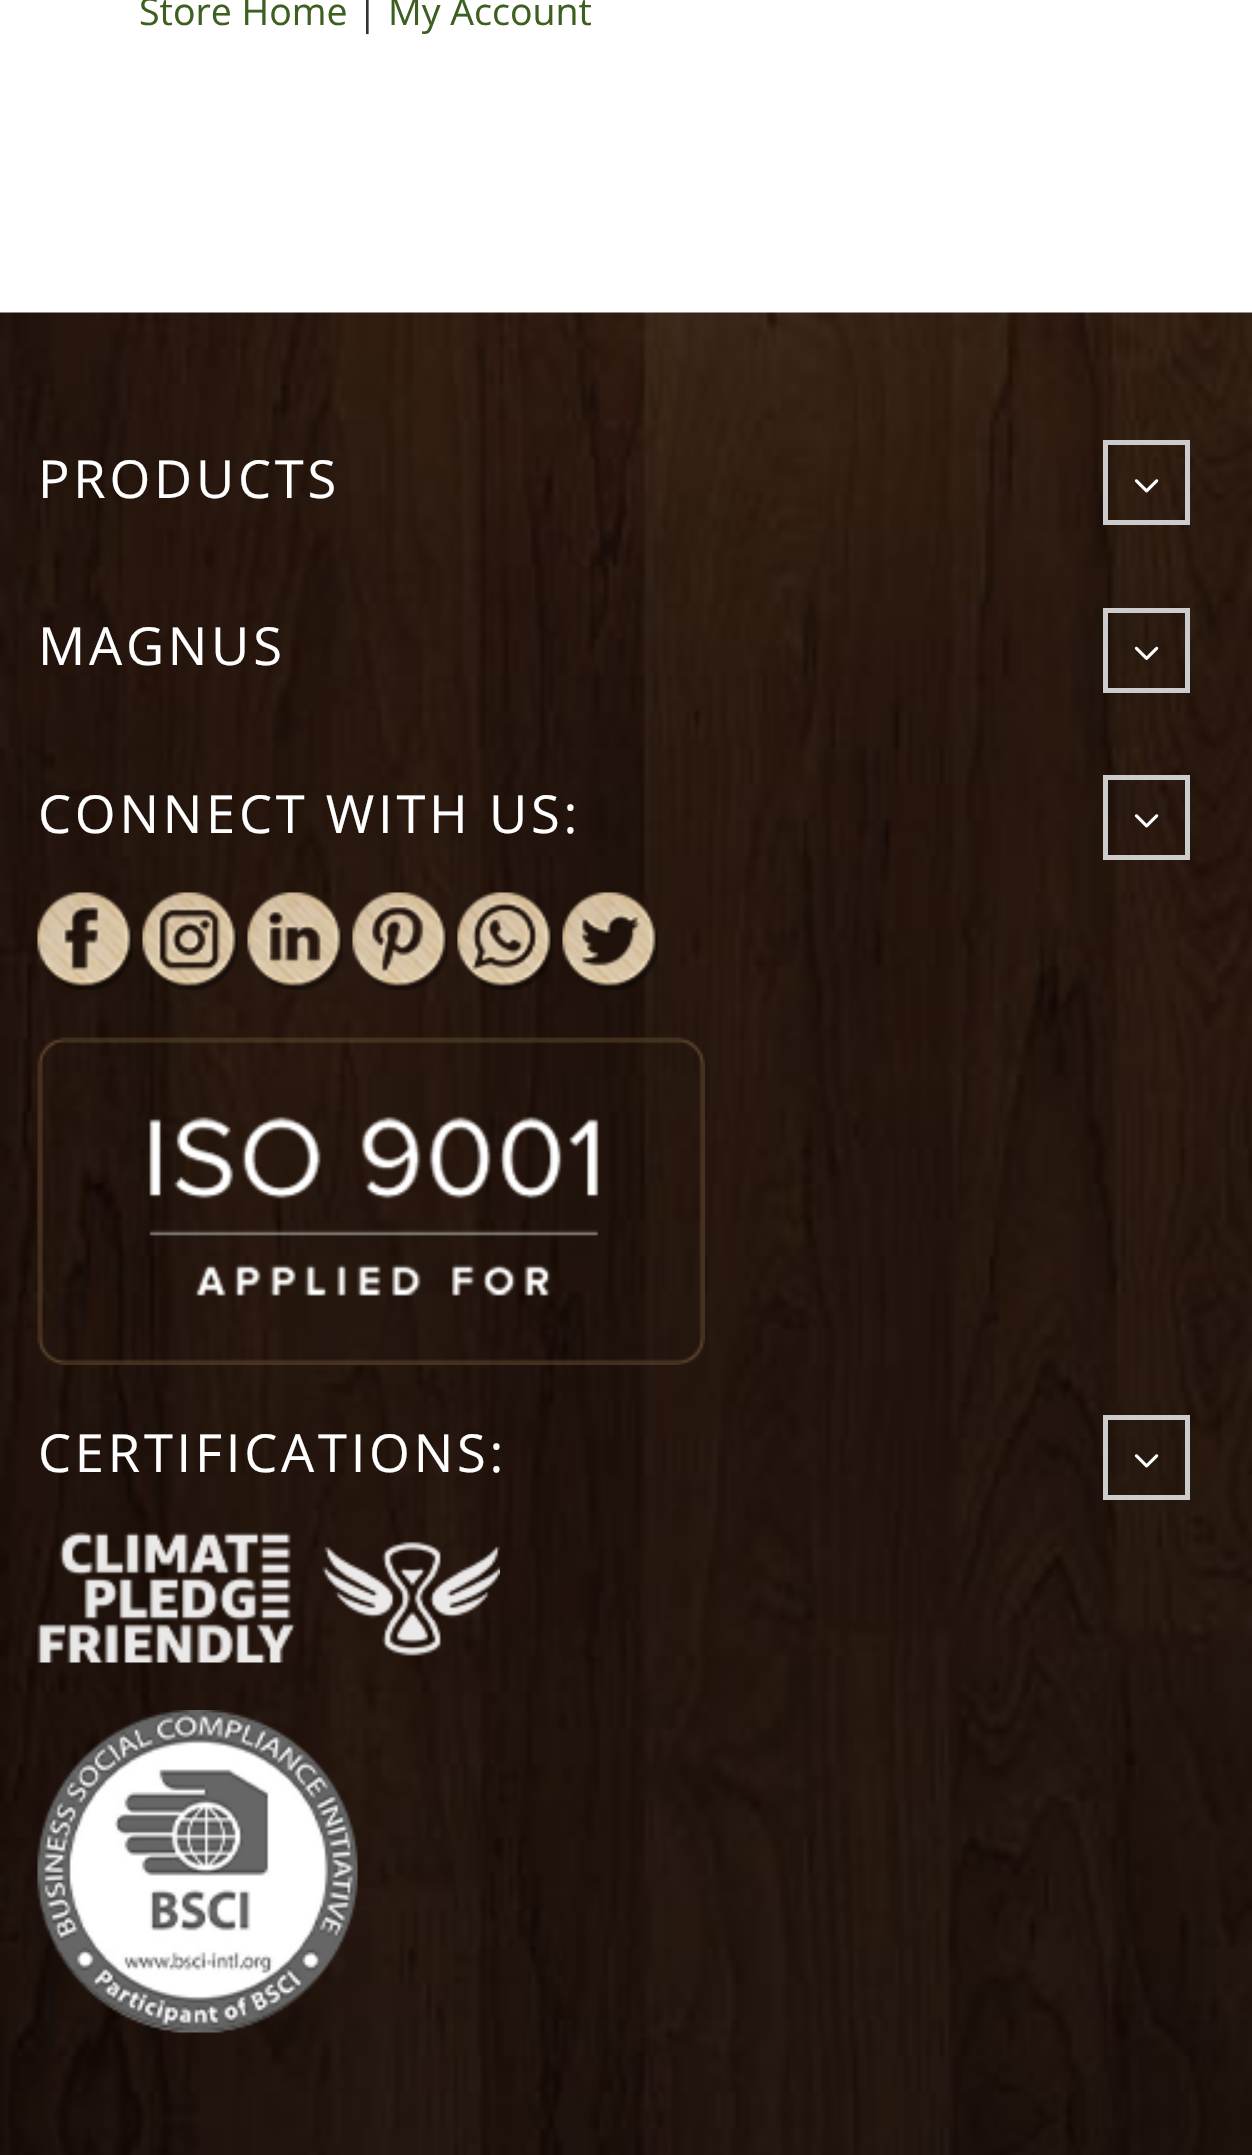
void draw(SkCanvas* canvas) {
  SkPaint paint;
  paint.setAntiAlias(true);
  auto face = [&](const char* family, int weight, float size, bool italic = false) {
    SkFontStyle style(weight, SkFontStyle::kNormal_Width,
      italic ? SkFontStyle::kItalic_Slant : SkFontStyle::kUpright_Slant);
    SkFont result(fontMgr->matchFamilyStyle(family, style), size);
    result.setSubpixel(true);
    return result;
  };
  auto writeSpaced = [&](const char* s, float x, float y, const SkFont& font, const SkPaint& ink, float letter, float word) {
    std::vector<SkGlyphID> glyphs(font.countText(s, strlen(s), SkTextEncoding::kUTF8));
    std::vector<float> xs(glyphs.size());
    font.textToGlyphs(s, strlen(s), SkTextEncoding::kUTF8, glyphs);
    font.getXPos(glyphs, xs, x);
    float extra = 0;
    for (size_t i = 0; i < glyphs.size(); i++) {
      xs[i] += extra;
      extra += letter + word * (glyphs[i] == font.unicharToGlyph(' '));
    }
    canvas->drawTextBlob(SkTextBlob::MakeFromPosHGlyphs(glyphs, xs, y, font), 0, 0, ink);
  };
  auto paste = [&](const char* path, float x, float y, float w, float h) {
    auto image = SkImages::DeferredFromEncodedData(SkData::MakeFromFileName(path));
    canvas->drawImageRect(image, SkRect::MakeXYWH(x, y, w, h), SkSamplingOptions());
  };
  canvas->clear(0xffffffff);
  paste("img/1.png", 0, 312, 1252, 1843);
  paint.setStroke(true);
  paint.setStrokeWidth(5);
  paint.setColor(0xffcccccc);
  canvas->drawRect(SkRect::MakeXYWH(1105.5f, 442.5f, 82, 80), paint);
  paste("img/2.png", 1134, 479, 25, 14);
  canvas->drawRect(SkRect::MakeXYWH(1105.5f, 610.5f, 82, 80), paint);
  paste("img/3.png", 1134, 646, 25, 14);
  canvas->drawRect(SkRect::MakeXYWH(1105.5f, 777.5f, 82, 80), paint);
  paste("img/4.png", 1134, 814, 25, 14);
  paste("img/5.png", 37, 892, 96, 98);
  paste("img/6.png", 142, 892, 96, 98);
  paste("img/7.png", 247, 892, 96, 98);
  paste("img/8.png", 352, 892, 96, 98);
  paste("img/9.png", 457, 892, 96, 98);
  paste("img/10.png", 562, 892, 96, 98);
  paste("img/11.png", 37, 1037, 668, 328);
  canvas->drawRect(SkRect::MakeXYWH(1105.5f, 1417.5f, 82, 80), paint);
  paste("img/12.png", 1134, 1454, 25, 14);
  paste("img/13.png", 37, 1532, 463, 131);
  paste("img/14.png", 37, 1710, 321, 323);
  auto f0 = face("Open Sans", 400, 37.5f);
  paint.setStroke(false);
  paint.setColor(0xff3d5f20);
  canvas->drawString("Store Home", 139, 25, f0, paint);
  paint.setColor(0xff333333);
  canvas->drawString("|", 357, 25, f0, paint);
  paint.setColor(0xff3d5f20);
  canvas->drawString("My Account", 388, 25, f0, paint);
  auto f1 = face("Open Sans", 400, 52.5f);
  paint.setColor(0xffffffff);
  {
    const struct { const char* s; float x, y; } items[] = {
      {"PRODUCTS", 38, 498},
      {"MAGNUS", 38, 665},
      {"CONNECT WITH US:", 38, 833},
      {"CERTIFICATIONS:", 38, 1472},
    };
    for (auto [s, x, y] : items) {
      writeSpaced(s, x, y, f1, paint, 3.75f, 0);
    }
  }
}
